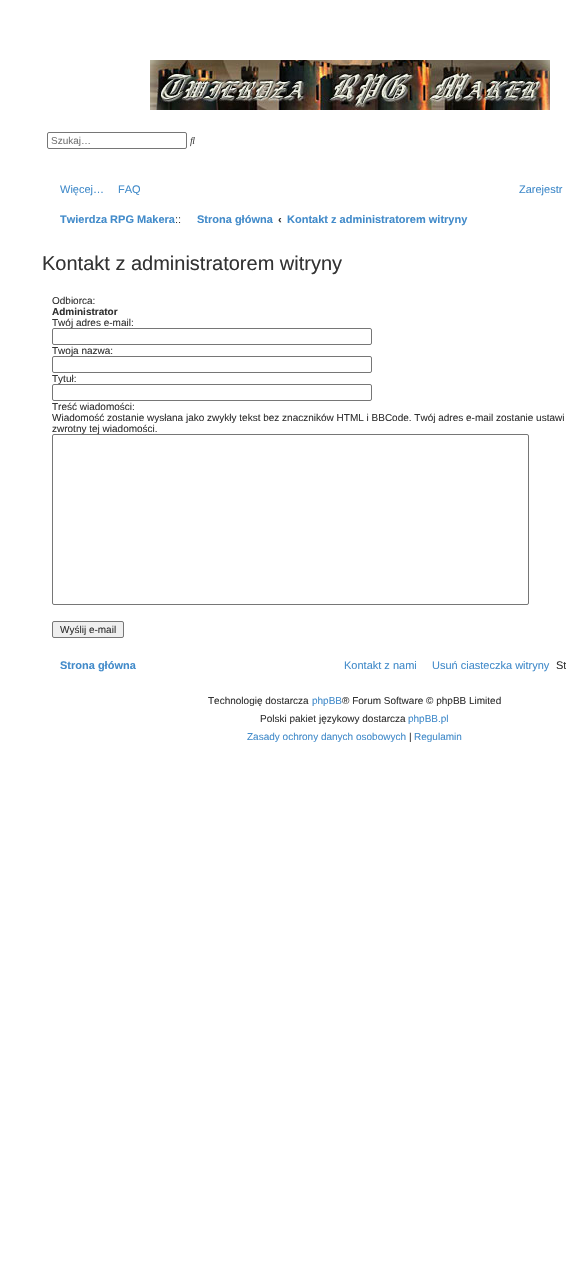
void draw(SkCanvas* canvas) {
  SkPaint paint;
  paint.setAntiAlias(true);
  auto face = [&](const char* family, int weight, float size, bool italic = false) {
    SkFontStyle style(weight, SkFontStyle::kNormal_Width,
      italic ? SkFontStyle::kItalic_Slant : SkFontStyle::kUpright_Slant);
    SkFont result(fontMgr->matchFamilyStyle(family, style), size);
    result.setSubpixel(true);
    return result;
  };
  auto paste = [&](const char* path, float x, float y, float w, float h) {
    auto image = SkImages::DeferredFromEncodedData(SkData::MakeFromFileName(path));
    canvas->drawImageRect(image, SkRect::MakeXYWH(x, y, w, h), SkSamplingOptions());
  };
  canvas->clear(0xffffffff);
  paste("img/1.png", 150, 60, 400, 50);
  paint.setStroke(true);
  paint.setStrokeWidth(1);
  paint.setColor(0xff767676);
  canvas->drawRoundRect(SkRect::MakeXYWH(47.5f, 132.5f, 139, 16), 1.5f, 1.5f, paint);
  paste("img/2.png", 190, 137, 5, 10);
  paint.setStroke(false);
  paint.setColor(0xffefefef);
  canvas->drawRoundRect(SkRect::MakeXYWH(52.5f, 621.5f, 71, 16), 1.5f, 1.5f, paint);
  paint.setStroke(true);
  paint.setColor(0xff767676);
  canvas->drawRoundRect(SkRect::MakeXYWH(52.5f, 621.5f, 71, 16), 1.5f, 1.5f, paint);
  auto f0 = face("Liberation Sans", 400, 10);
  paint.setStroke(false);
  paint.setColor(0xff757575);
  canvas->drawString("Szukaj…", 51, 144, f0, paint);
  auto f1 = face("Liberation Sans", 400, 11);
  paint.setColor(0xff428bca);
  {
    const struct { const char* s; float x, y; } items[] = {
      {"Więcej…", 60, 193},
      {"FAQ", 118, 193},
      {"Zarejestr", 519, 193},
    };
    for (auto [s, x, y] : items) {
      canvas->drawString(s, x, y, f1, paint);
    }
  }
  auto f2 = face("Liberation Sans", 700, 11);
  canvas->drawString("Twierdza RPG Makera", 60, 223, f2, paint);
  paint.setColor(0xff333333);
  canvas->drawString("::", 175, 223, f1, paint);
  paint.setColor(0xff428bca);
  canvas->drawString("Strona główna", 197, 223, f2, paint);
  paint.setColor(0xff333333);
  canvas->drawString("‹", 278, 223, f2, paint);
  paint.setColor(0xff428bca);
  canvas->drawString("Kontakt z administratorem witryny", 287, 223, f2, paint);
  auto f3 = face("Liberation Sans", 400, 20);
  paint.setColor(0xff333333);
  canvas->drawString("Kontakt z administratorem witryny", 42, 270, f3, paint);
  canvas->drawString("Odbiorca:", 52, 304, f0, paint);
  auto f4 = face("Liberation Sans", 700, 10);
  canvas->drawString("Administrator", 52, 315, f4, paint);
  canvas->drawString("Twój adres e-mail:", 52, 326, f0, paint);
  paint.setColor(0xffffffff);
  canvas->drawRoundRect(SkRect::MakeXYWH(52.5f, 328.5f, 319, 16), 1.5f, 1.5f, paint);
  paint.setStroke(true);
  paint.setColor(0xff767676);
  canvas->drawRoundRect(SkRect::MakeXYWH(52.5f, 328.5f, 319, 16), 1.5f, 1.5f, paint);
  paint.setStroke(false);
  paint.setColor(0xff333333);
  canvas->drawString("Twoja nazwa:", 52, 354, f0, paint);
  paint.setColor(0xffffffff);
  canvas->drawRoundRect(SkRect::MakeXYWH(52.5f, 356.5f, 319, 16), 1.5f, 1.5f, paint);
  paint.setStroke(true);
  paint.setColor(0xff767676);
  canvas->drawRoundRect(SkRect::MakeXYWH(52.5f, 356.5f, 319, 16), 1.5f, 1.5f, paint);
  paint.setStroke(false);
  paint.setColor(0xff333333);
  canvas->drawString("Tytuł:", 52, 382, f0, paint);
  paint.setColor(0xffffffff);
  canvas->drawRoundRect(SkRect::MakeXYWH(52.5f, 384.5f, 319, 16), 1.5f, 1.5f, paint);
  paint.setStroke(true);
  paint.setColor(0xff767676);
  canvas->drawRoundRect(SkRect::MakeXYWH(52.5f, 384.5f, 319, 16), 1.5f, 1.5f, paint);
  paint.setStroke(false);
  paint.setColor(0xff333333);
  {
    const struct { const char* s; float x, y; } items[] = {
      {"Treść wiadomości:", 52, 410},
      {"Wiadomość zostanie wysłana jako zwykły tekst bez znaczników HTML i BBCode. Twój adres e-mail zostanie ustawi", 52, 421},
      {"zwrotny tej wiadomości.", 52, 432},
    };
    for (auto [s, x, y] : items) {
      canvas->drawString(s, x, y, f0, paint);
    }
  }
  paint.setColor(0xffffffff);
  canvas->drawRoundRect(SkRect::MakeXYWH(52.5f, 434.5f, 476, 170), 1.5f, 1.5f, paint);
  paint.setStroke(true);
  paint.setColor(0xff767676);
  canvas->drawRoundRect(SkRect::MakeXYWH(52.5f, 434.5f, 476, 170), 1.5f, 1.5f, paint);
  paint.setStroke(false);
  paint.setColor(0xff333333);
  canvas->drawString("Wyślij e-mail", 60, 633, f0, paint);
  paint.setColor(0xff428bca);
  canvas->drawString("Strona główna", 60, 669, f2, paint);
  canvas->drawString("Kontakt z nami", 344, 669, f1, paint);
  canvas->drawString("Usuń ciasteczka witryny", 432, 669, f1, paint);
  paint.setColor(0xff333333);
  canvas->drawString("St", 556, 669, f1, paint);
  canvas->drawString("Technologię dostarcza", 208, 704, f0, paint);
  paint.setColor(0xff428bca);
  canvas->drawString("phpBB", 312, 704, f0, paint);
  paint.setColor(0xff333333);
  canvas->drawString("® Forum Software © phpBB Limited", 342, 704, f0, paint);
  canvas->drawString("Polski pakiet językowy dostarcza", 260, 722, f0, paint);
  paint.setColor(0xff428bca);
  canvas->drawString("phpBB.pl", 408, 722, f0, paint);
  canvas->drawString("Zasady ochrony danych osobowych", 247, 740, f0, paint);
  paint.setColor(0xff333333);
  canvas->drawString("|", 409, 740, f0, paint);
  paint.setColor(0xff428bca);
  canvas->drawString("Regulamin", 414, 740, f0, paint);
}
